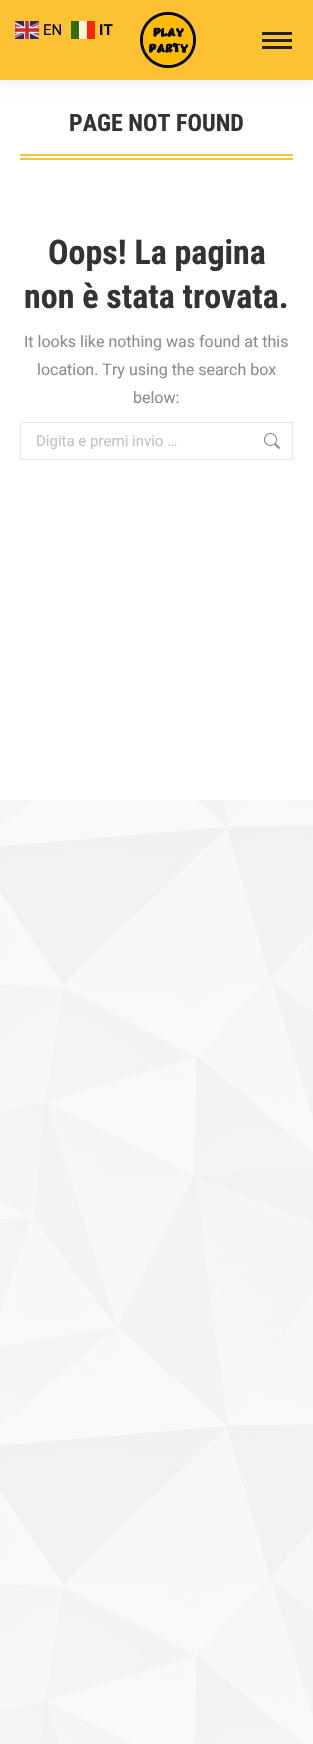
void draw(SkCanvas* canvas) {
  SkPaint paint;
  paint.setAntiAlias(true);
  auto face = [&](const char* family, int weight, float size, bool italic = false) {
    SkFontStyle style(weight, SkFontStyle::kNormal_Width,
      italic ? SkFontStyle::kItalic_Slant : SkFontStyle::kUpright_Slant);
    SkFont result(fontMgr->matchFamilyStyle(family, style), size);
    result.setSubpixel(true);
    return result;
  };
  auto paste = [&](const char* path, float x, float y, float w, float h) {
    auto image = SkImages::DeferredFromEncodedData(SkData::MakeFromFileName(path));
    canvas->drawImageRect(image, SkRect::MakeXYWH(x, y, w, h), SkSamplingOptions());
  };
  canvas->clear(0xfff9f9f9);
  paste("img/1.png", 0, 800, 313, 944);
  paint.setColor(0xffffffff);
  canvas->drawRect(SkRect::MakeXYWH(0, 80, 313, 720), paint);
  paint.setColor(0x12000000);
  paint.setMaskFilter(SkMaskFilter::MakeBlur(kNormal_SkBlurStyle, 7.5f));
  canvas->drawRect(SkRect::MakeXYWH(-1, -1, 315, 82), paint);
  paint.setMaskFilter(nullptr);
  paint.setColor(0xfffdc134);
  canvas->drawRect(SkRect::MakeXYWH(0, 0, 313, 80), paint);
  paste("img/2.png", 15, 21, 24, 18);
  {
    const struct { float x, y, w, h; SkColor color; } items[] = {
      {79, 21, 8, 18, 0xfffff3d6},
      {71, 21, 8, 18, 0xff336c0a},
      {87, 21, 8, 18, 0xfffc270a},
    };
    for (auto [x, y, w, h, color] : items) {
      paint.setColor(color);
      canvas->drawRect(SkRect::MakeXYWH(x, y, w, h), paint);
    }
  }
  paste("img/3.png", 140, 12, 56, 56);
  {
    const struct { float x, y, w, h; SkColor color; } items[] = {
      {262, 32, 30, 3, 0xff222222},
      {262, 39, 30, 3, 0xff222222},
      {262, 46, 30, 3, 0xff222222},
      {20, 154, 273, 2, 0xfffdc134},
      {20, 158, 273, 2, 0xfffdc134},
    };
    for (auto [x, y, w, h, color] : items) {
      paint.setColor(color);
      canvas->drawRect(SkRect::MakeXYWH(x, y, w, h), paint);
    }
  }
  paint.setStroke(true);
  paint.setStrokeWidth(1);
  paint.setColor(0xffe7e7e7);
  canvas->drawRect(SkRect::MakeXYWH(20.5f, 422.5f, 272, 37), paint);
  paste("img/4.png", 264, 433, 16, 16);
  auto f0 = face("Roboto", 400, 15);
  paint.setStroke(false);
  paint.setColor(0xff000000);
  canvas->drawString("EN", 43, 35, f0, paint);
  auto f1 = face("Roboto", 700, 15);
  canvas->drawString("IT", 99, 35, f1, paint);
  auto f2 = face("Roboto Condensed", 700, 24);
  paint.setColor(0xff333333);
  canvas->drawString("PAGE NOT FOUND", 69, 131, f2, paint);
  auto f3 = face("Roboto Condensed", 700, 34);
  canvas->drawString("Oops! La pagina", 48, 264, f3, paint);
  canvas->drawString("non è stata trovata.", 24, 308, f3, paint);
  auto f4 = face("Roboto", 400, 16);
  paint.setColor(0xff8b8d94);
  {
    const struct { const char* s; float x, y; } items[] = {
      {"It looks like nothing was found at this", 24, 347},
      {"location. Try using the search box", 37, 375},
      {"below:", 133, 403},
    };
    for (auto [s, x, y] : items) {
      canvas->drawString(s, x, y, f4, paint);
    }
  }
  paint.setColor(0xffc2c3c6);
  canvas->drawString("Digita e premi invio …", 36, 446, f0, paint);
}
